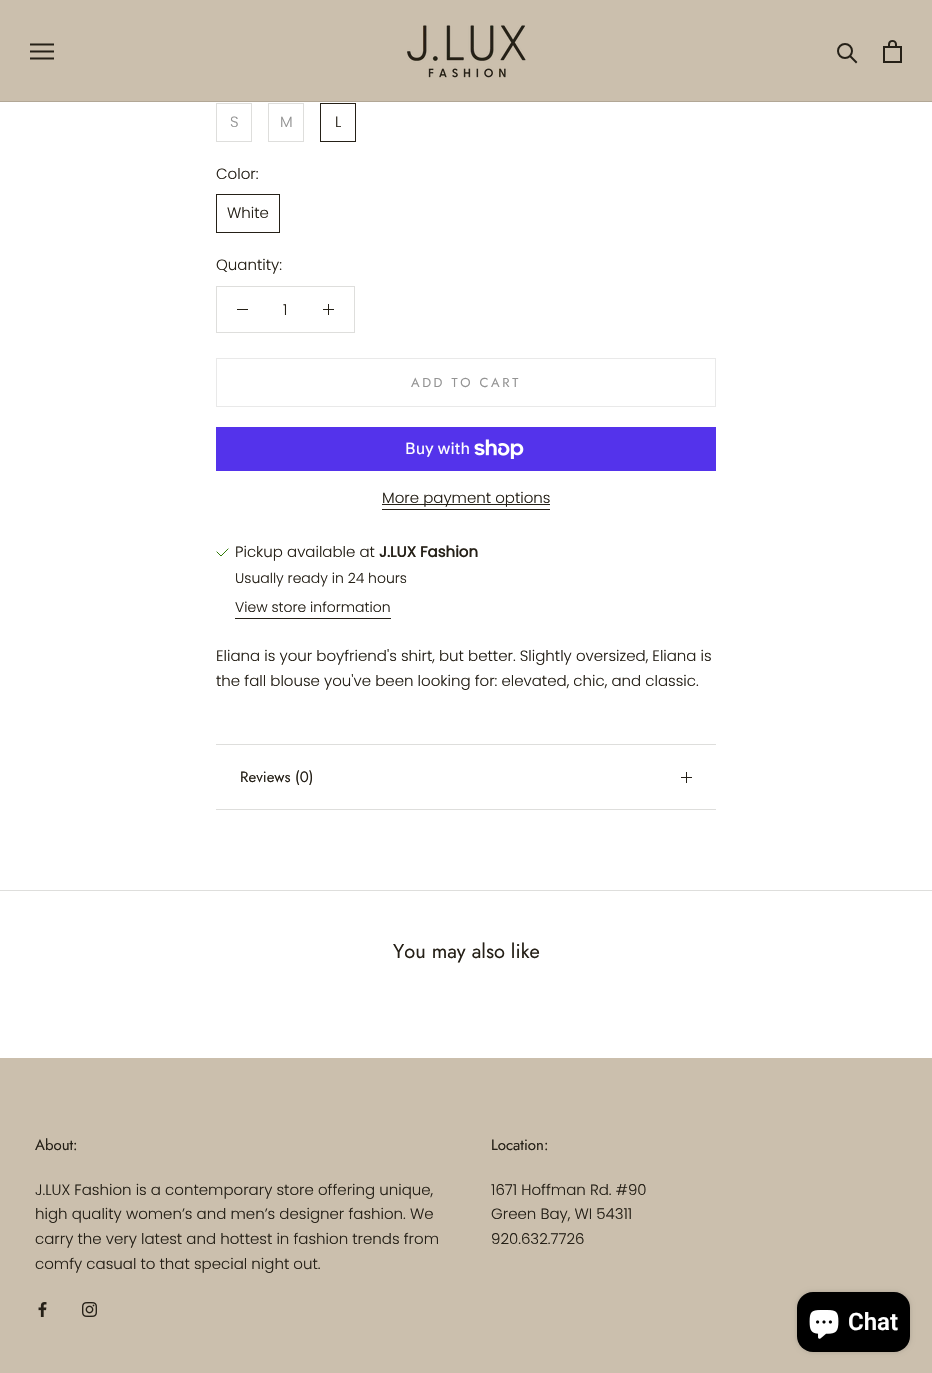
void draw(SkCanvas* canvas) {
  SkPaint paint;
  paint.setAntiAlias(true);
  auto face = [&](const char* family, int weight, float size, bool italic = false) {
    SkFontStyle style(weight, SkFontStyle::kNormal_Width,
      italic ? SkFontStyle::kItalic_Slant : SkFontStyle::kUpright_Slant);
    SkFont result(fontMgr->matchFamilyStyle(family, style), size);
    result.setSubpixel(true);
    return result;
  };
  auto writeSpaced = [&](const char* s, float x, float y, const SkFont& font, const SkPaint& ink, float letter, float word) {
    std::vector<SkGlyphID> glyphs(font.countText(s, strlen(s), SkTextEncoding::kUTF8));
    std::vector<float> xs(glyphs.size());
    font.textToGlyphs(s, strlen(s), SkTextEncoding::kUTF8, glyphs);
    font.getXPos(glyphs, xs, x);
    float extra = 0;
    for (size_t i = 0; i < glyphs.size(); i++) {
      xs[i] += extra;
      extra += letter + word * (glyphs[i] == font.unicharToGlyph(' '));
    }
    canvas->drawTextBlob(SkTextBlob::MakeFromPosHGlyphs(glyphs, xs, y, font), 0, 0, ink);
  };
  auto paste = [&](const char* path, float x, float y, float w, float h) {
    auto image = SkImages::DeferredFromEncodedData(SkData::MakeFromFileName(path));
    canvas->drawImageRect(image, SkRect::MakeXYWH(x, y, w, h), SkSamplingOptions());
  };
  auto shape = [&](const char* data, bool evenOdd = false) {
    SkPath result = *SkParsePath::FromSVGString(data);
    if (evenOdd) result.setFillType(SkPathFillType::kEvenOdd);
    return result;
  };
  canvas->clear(0xffffffff);
  paint.setColor(0xffcbbfad);
  canvas->drawRect(SkRect::MakeXYWH(0, 0, 932, 101), paint);
  paint.setColor(0xffb2a796);
  canvas->drawRect(SkRect::MakeXYWH(0, 101, 932, 1), paint);
  paste("img/1.png", 30, 43, 24, 17);
  paste("img/2.png", 407, 25, 119, 53);
  paint.setStroke(true);
  paint.setStrokeWidth(2);
  paint.setStrokeCap(SkPaint::kSquare_Cap);
  paint.setColor(0xff252017);
  canvas->drawPath(shape("M856 62L850.5 56.5"), paint);
  paint.setStrokeCap(SkPaint::kButt_Cap);
  canvas->drawCircle(845, 51, 7, paint);
  paste("img/3.png", 883, 40, 19, 23);
  paint.setStrokeWidth(1);
  paint.setColor(0xffdededc);
  canvas->drawRect(SkRect::MakeXYWH(216.5f, 103.5f, 35, 38), paint);
  canvas->drawRect(SkRect::MakeXYWH(268.5f, 103.5f, 35, 38), paint);
  paint.setColor(0xff252017);
  canvas->drawRect(SkRect::MakeXYWH(320.5f, 103.5f, 35, 38), paint);
  canvas->drawRect(SkRect::MakeXYWH(216.5f, 194.5f, 63, 38), paint);
  paint.setColor(0xffdededc);
  canvas->drawRect(SkRect::MakeXYWH(216.5f, 286.5f, 138, 46), paint);
  paint.setStroke(false);
  {
    const struct { float x, y, w, h; SkColor color; } items[] = {
      {237, 309, 11, 1, 0xff252017},
      {328, 304, 1, 11, 0xff252017},
      {323, 309, 11, 1, 0xff252017},
    };
    for (auto [x, y, w, h, color] : items) {
      paint.setColor(color);
      canvas->drawRect(SkRect::MakeXYWH(x, y, w, h), paint);
    }
  }
  paint.setStroke(true);
  paint.setColor(0xffe9e9e9);
  canvas->drawRect(SkRect::MakeXYWH(216.5f, 358.5f, 499, 48), paint);
  paint.setStroke(false);
  paint.setColor(0xff5433eb);
  canvas->drawRect(SkRect::MakeXYWH(216, 427, 500, 44), paint);
  paste("img/4.png", 474, 439, 50, 20);
  paint.setColor(0xff252017);
  canvas->drawRect(SkRect::MakeXYWH(382, 504, 168, 1), paint);
  canvas->drawRect(SkRect::MakeXYWH(382, 509, 168, 1), paint);
  paint.setStroke(true);
  paint.setStrokeCap(SkPaint::kSquare_Cap);
  paint.setColor(0xff307a07);
  canvas->drawPath(shape("M217 552L221 556L228 549"), paint);
  paint.setStroke(false);
  {
    const struct { float x, y, w, h; SkColor color; } items[] = {
      {235, 618, 156, 1, 0xff252017},
      {216, 744, 500, 1, 0xffdededc},
      {216, 809, 500, 1, 0xffdededc},
      {686, 772, 1, 11, 0xff252017},
      {681, 777, 11, 1, 0xff252017},
      {0, 890, 932, 1, 0xffdededc},
      {0, 1058, 932, 315, 0xffcbbfad},
    };
    for (auto [x, y, w, h, color] : items) {
      paint.setColor(color);
      canvas->drawRect(SkRect::MakeXYWH(x, y, w, h), paint);
    }
  }
  paste("img/5.png", 38, 1302, 9, 15);
  paste("img/6.png", 82, 1302, 15, 15);
  paint.setColor(0x26000000);
  paint.setMaskFilter(SkMaskFilter::MakeBlur(kNormal_SkBlurStyle, 2.5f));
  canvas->drawRoundRect(SkRect::MakeXYWH(797, 1292, 113, 60), 16, 16, paint);
  paint.setMaskFilter(nullptr);
  paint.setColor(0xff000000);
  canvas->drawRoundRect(SkRect::MakeXYWH(797, 1292, 113, 60), 16, 16, paint);
  paste("img/7.png", 809, 1310, 30, 29);
  auto f0 = face("Poppins", 300, 15);
  paint.setColor(0xff939393);
  canvas->drawString("S", 230, 127, f0, paint);
  canvas->drawString("M", 280, 127, f0, paint);
  paint.setColor(0xff252017);
  {
    const struct { const char* s; float x, y; } items[] = {
      {"L", 335, 127},
      {"Color:", 216, 179},
      {"White", 227, 218},
      {"Quantity:", 216, 270},
      {"1", 283, 315},
    };
    for (auto [s, x, y] : items) {
      canvas->drawString(s, x, y, f0, paint);
    }
  }
  auto f1 = face("Jost", 400, 13);
  paint.setColor(0xff939393);
  writeSpaced("ADD TO CART", 411, 387, f1, paint, 2.6f, 0);
  auto f2 = face("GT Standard", 400, 16);
  paint.setColor(0xffffffff);
  canvas->drawString("Buy with", 405, 454, f2, paint);
  paint.setColor(0xff252017);
  canvas->drawString("More payment options", 382, 503, f0, paint);
  canvas->drawString("Pickup available at", 235, 557, f0, paint);
  auto f3 = face("Poppins", 700, 15);
  canvas->drawString("J.LUX Fashion", 379, 557, f3, paint);
  auto f4 = face("Poppins", 300, 14);
  canvas->drawString("Usually ready in 24 hours", 235, 583, f4, paint);
  canvas->drawString("View store information", 235, 612, f4, paint);
  canvas->drawString("Eliana is your boyfriend's shirt, but better. Slightly oversized, Eliana is", 216, 661, f0, paint);
  canvas->drawString("the fall blouse you've been looking for: elevated, chic, and classic.", 216, 686, f0, paint);
  auto f5 = face("Jost", 400, 15);
  canvas->drawString("Reviews (0)", 240, 782, f5, paint);
  auto f6 = face("Jost", 400, 20);
  canvas->drawString("You may also like", 393, 958, f6, paint);
  canvas->drawString("About:", 35, 1150, f5, paint);
  {
    const struct { const char* s; float x, y; } items[] = {
      {"J.LUX Fashion is a contemporary store offering unique,", 35, 1195},
      {"high quality women’s and men’s designer fashion. We", 35, 1219},
      {"carry the very latest and hottest in fashion trends from", 35, 1244},
      {"comfy casual to that special night out.", 35, 1269},
    };
    for (auto [s, x, y] : items) {
      canvas->drawString(s, x, y, f0, paint);
    }
  }
  canvas->drawString("Location:", 491, 1150, f5, paint);
  {
    const struct { const char* s; float x, y; } items[] = {
      {"1671 Hoffman Rd. #90", 491, 1195},
      {"Green Bay, WI 54311", 491, 1219},
      {"920.632.7726", 491, 1244},
    };
    for (auto [s, x, y] : items) {
      canvas->drawString(s, x, y, f0, paint);
    }
  }
  auto f7 = face("Roboto", 600, 24);
  paint.setColor(0xffffffff);
  canvas->drawString("Chat", 848, 1330, f7, paint);
}
